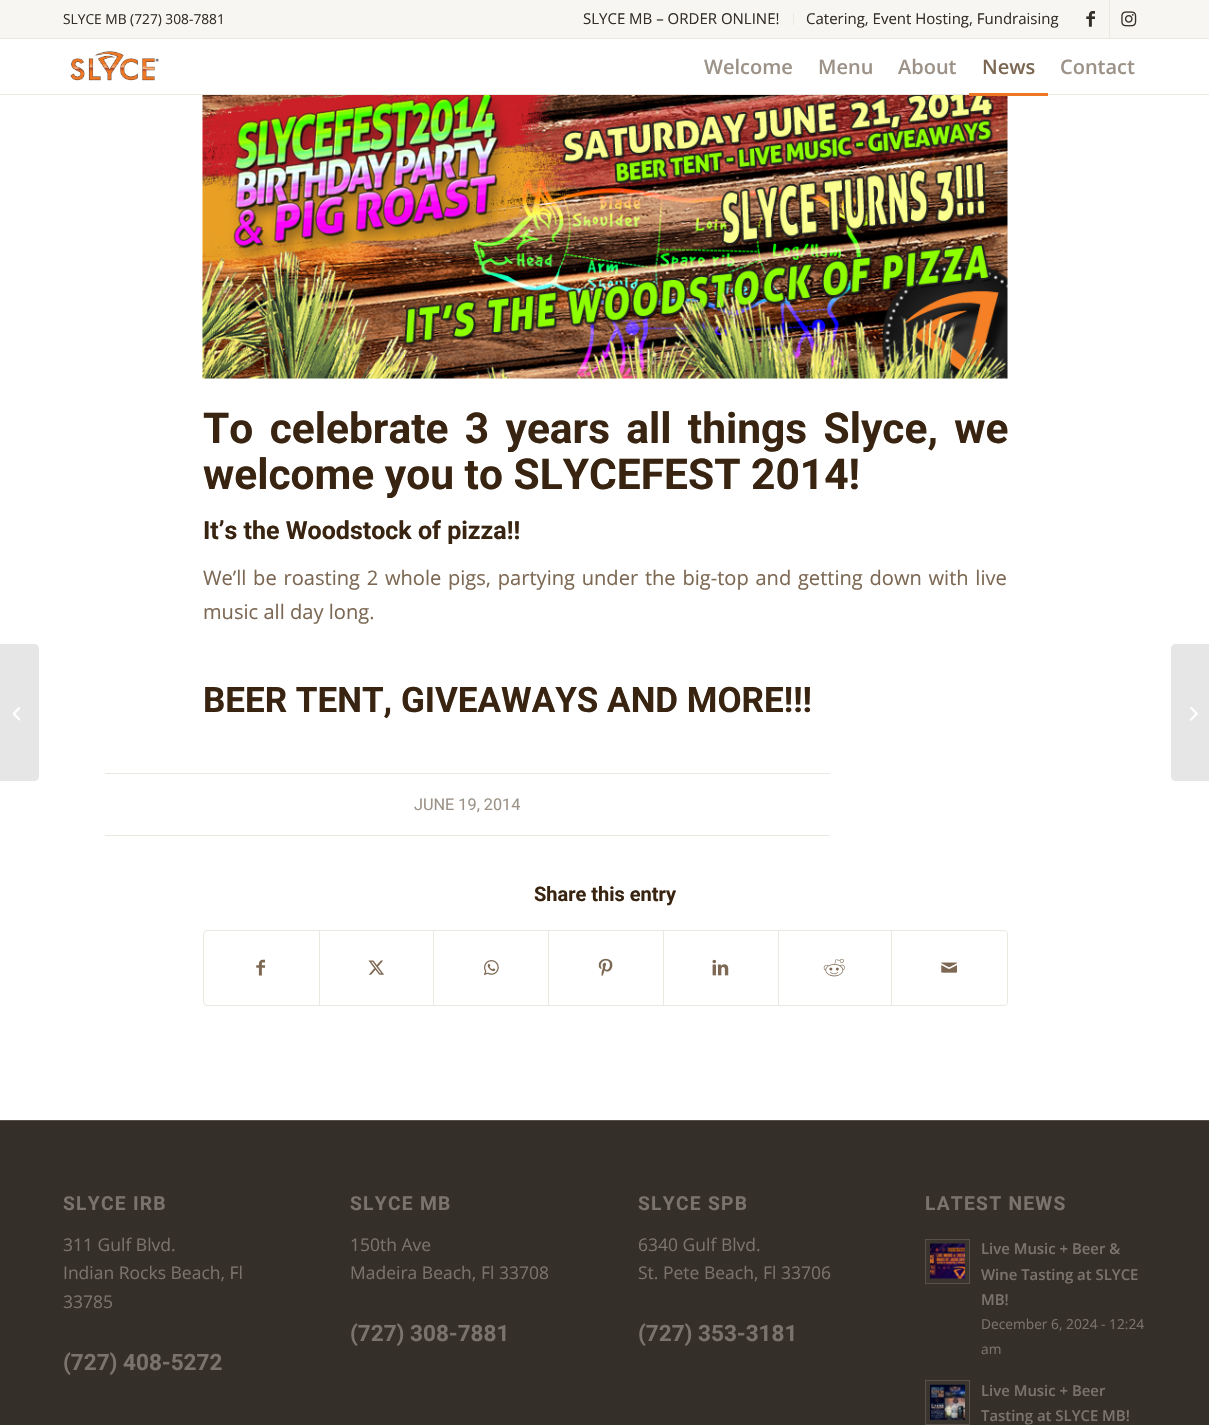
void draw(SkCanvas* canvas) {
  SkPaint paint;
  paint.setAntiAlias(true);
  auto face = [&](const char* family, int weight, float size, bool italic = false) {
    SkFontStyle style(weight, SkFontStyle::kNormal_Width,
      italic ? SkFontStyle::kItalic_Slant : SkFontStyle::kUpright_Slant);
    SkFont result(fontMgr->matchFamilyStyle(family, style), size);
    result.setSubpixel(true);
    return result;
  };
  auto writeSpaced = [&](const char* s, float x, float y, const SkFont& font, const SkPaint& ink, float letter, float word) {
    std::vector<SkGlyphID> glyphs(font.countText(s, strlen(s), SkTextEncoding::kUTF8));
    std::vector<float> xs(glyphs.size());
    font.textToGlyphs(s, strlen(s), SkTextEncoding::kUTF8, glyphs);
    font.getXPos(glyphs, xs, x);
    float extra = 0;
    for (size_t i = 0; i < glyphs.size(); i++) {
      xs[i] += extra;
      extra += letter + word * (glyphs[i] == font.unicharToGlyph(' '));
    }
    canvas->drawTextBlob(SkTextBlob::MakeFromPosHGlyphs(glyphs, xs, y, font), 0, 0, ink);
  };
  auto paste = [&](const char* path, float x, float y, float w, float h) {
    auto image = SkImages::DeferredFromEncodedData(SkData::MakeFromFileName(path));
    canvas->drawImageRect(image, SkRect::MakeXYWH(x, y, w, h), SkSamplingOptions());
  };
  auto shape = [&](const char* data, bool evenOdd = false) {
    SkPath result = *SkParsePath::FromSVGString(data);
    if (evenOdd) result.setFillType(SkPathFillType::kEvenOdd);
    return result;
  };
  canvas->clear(0xffffffff);
  {
    const struct { float x, y, w, h; SkColor color; } items[] = {
      {0, 0, 1209, 38, 0xfff8f6f2},
      {0, 38, 1209, 1, 0xffebe8e2},
      {793, 13, 1, 12, 0xffebe8e2},
      {1109, 0, 1, 38, 0xffebe8e2},
    };
    for (auto [x, y, w, h, color] : items) {
      paint.setColor(color);
      canvas->drawRect(SkRect::MakeXYWH(x, y, w, h), paint);
    }
  }
  paste("img/1.png", 1086, 11, 9, 16);
  paste("img/2.png", 1121, 11, 16, 16);
  canvas->drawRect(SkRect::MakeXYWH(0, 94, 1209, 1), paint);
  paste("img/3.png", 70, 51, 89, 30);
  paste("img/5.png", 202, 95, 806, 284);
  paint.setColor(0xffed7723);
  canvas->drawRect(SkRect::MakeXYWH(969, 93, 79, 3), paint);
  paint.setColor(0xffe6e6e6);
  canvas->drawPath(shape("M0 644H34C37 644 39 646 39 649V776C39 779 37 781 34 781H0Z"), paint);
  paste("img/4.png", 13, 707, 7, 14);
  paint.setColor(0xffebe8e2);
  canvas->drawRect(SkRect::MakeXYWH(105, 773, 725, 1), paint);
  canvas->drawRect(SkRect::MakeXYWH(105, 835, 725, 1), paint);
  paint.setStroke(true);
  paint.setStrokeWidth(1);
  canvas->drawRoundRect(SkRect::MakeXYWH(203.5f, 930.5f, 804, 75), 3.5f, 3.5f, paint);
  paste("img/6.png", 256, 959, 9, 17);
  paint.setStroke(false);
  canvas->drawRect(SkRect::MakeXYWH(319, 931, 1, 74), paint);
  paste("img/7.png", 368, 960, 16, 15);
  canvas->drawRect(SkRect::MakeXYWH(433, 931, 1, 74), paint);
  paste("img/8.png", 483, 960, 16, 16);
  canvas->drawRect(SkRect::MakeXYWH(548, 931, 1, 74), paint);
  paste("img/9.png", 598, 958, 15, 19);
  canvas->drawRect(SkRect::MakeXYWH(663, 931, 1, 74), paint);
  paste("img/10.png", 712, 959, 17, 17);
  canvas->drawRect(SkRect::MakeXYWH(778, 931, 1, 74), paint);
  paste("img/11.png", 823, 958, 22, 19);
  canvas->drawRect(SkRect::MakeXYWH(891, 931, 1, 74), paint);
  paste("img/12.png", 941, 962, 16, 11);
  paint.setColor(0xff342f29);
  canvas->drawRect(SkRect::MakeXYWH(0, 1121, 1209, 304), paint);
  paint.setColor(0xff575149);
  canvas->drawRect(SkRect::MakeXYWH(0, 1120, 1209, 1), paint);
  paint.setColor(0xff39342d);
  canvas->drawRect(SkRect::MakeXYWH(925.5f, 1239.5f, 44, 44), paint);
  paint.setStroke(true);
  paint.setColor(0xff575149);
  canvas->drawRect(SkRect::MakeXYWH(925.5f, 1239.5f, 44, 44), paint);
  paste("img/13.png", 930, 1243, 35, 36);
  paint.setStroke(false);
  paint.setColor(0xff39342d);
  canvas->drawRect(SkRect::MakeXYWH(925.5f, 1380.5f, 44, 44), paint);
  paint.setStroke(true);
  paint.setColor(0xff575149);
  canvas->drawRect(SkRect::MakeXYWH(925.5f, 1380.5f, 44, 44), paint);
  paste("img/14.png", 930, 1384, 35, 36);
  paint.setStroke(false);
  paint.setColor(0xffe6e6e6);
  canvas->drawPath(shape("M1176 644H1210V781H1176C1173 781 1171 779 1171 776V649C1171 646 1173 644 1176 644Z"), paint);
  paste("img/15.png", 1190, 707, 8, 14);
  auto f0 = face("Open Sans", 400, 13.75f);
  paint.setColor(0xff342f29);
  canvas->drawString("SLYCE MB (727) 308-7881", 63, 24, f0, paint);
  auto f1 = face("Open Sans", 400, 15);
  canvas->drawString("SLYCE MB – ORDER ONLINE!", 583, 24, f1, paint);
  canvas->drawString("Catering, Event Hosting, Fundraising", 806, 24, f1, paint);
  auto f2 = face("Open Sans", 600, 20);
  paint.setColor(0xff9c9288);
  {
    const struct { const char* s; float x, y; } items[] = {
      {"Welcome", 704, 74},
      {"Menu", 818, 74},
      {"About", 898, 74},
    };
    for (auto [s, x, y] : items) {
      canvas->drawString(s, x, y, f2, paint);
    }
  }
  paint.setColor(0xff7c6853);
  canvas->drawString("News", 982, 74, f2, paint);
  paint.setColor(0xff9c9288);
  canvas->drawString("Contact", 1060, 74, f2, paint);
  auto f3 = face("Roboto", 700, 42.5f);
  paint.setColor(0xff382410);
  writeSpaced("To celebrate 3 years all things Slyce, we", 203, 443, f3, paint, 0, 5.75f);
  canvas->drawString("welcome you to SLYCEFEST 2014!", 203, 489, f3, paint);
  auto f4 = face("Roboto", 700, 25);
  canvas->drawString("It’s the Woodstock of pizza!!", 203, 539, f4, paint);
  auto f5 = face("Open Sans", 400, 20.1f);
  paint.setColor(0xff7c6853);
  writeSpaced("We’ll be roasting 2 whole pigs, partying under the big-top and getting down with live", 203, 585, f5, paint, 0, 1.5f);
  canvas->drawString("music all day long.", 203, 619, f5, paint);
  auto f6 = face("Roboto", 700, 35);
  paint.setColor(0xff382410);
  canvas->drawString("BEER TENT, GIVEAWAYS AND MORE!!!", 203, 712, f6, paint);
  auto f7 = face("Roboto", 400, 16.25f);
  paint.setColor(0xff9c9288);
  canvas->drawString("JUNE 19, 2014", 414, 810, f7, paint);
  auto f8 = face("Roboto", 700, 20);
  paint.setColor(0xff382410);
  canvas->drawString("Share this entry", 534, 901, f8, paint);
  auto f9 = face("Roboto", 700, 19.25f);
  paint.setColor(0xff7a736b);
  writeSpaced("SLYCE IRB", 63, 1210, f9, paint, 1.25f, 0);
  auto f10 = face("Open Sans", 400, 17.5f);
  {
    const struct { const char* s; float x, y; } items[] = {
      {"311 Gulf Blvd.", 63, 1251},
      {"Indian Rocks Beach, Fl", 63, 1279},
      {"33785", 63, 1308},
    };
    for (auto [s, x, y] : items) {
      canvas->drawString(s, x, y, f10, paint);
    }
  }
  auto f11 = face("Roboto", 700, 22.5f);
  canvas->drawString("(727) 408-5272", 63, 1370, f11, paint);
  writeSpaced("SLYCE MB", 350, 1210, f9, paint, 1.25f, 0);
  canvas->drawString("150th Ave", 350, 1251, f10, paint);
  canvas->drawString("Madeira Beach, Fl 33708", 350, 1279, f10, paint);
  canvas->drawString("(727) 308-7881", 350, 1341, f11, paint);
  writeSpaced("SLYCE SPB", 638, 1210, f9, paint, 1.25f, 0);
  canvas->drawString("6340 Gulf Blvd.", 638, 1251, f10, paint);
  canvas->drawString("St. Pete Beach, Fl 33706", 638, 1279, f10, paint);
  canvas->drawString("(727) 353-3181", 638, 1341, f11, paint);
  writeSpaced("LATEST NEWS", 925, 1210, f9, paint, 1.25f, 0);
  auto f12 = face("Open Sans", 600, 14.9f);
  {
    const struct { const char* s; float x, y; } items[] = {
      {"Live Music + Beer &", 981, 1254},
      {"Wine Tasting at SLYCE", 981, 1280},
      {"MB!", 981, 1305},
    };
    for (auto [s, x, y] : items) {
      canvas->drawString(s, x, y, f12, paint);
    }
  }
  canvas->drawString("December 6, 2024 - 12:24", 981, 1329, f0, paint);
  canvas->drawString("am", 981, 1354, f0, paint);
  canvas->drawString("Live Music + Beer", 981, 1396, f12, paint);
  canvas->drawString("Tasting at SLYCE MB!", 981, 1421, f12, paint);
}
